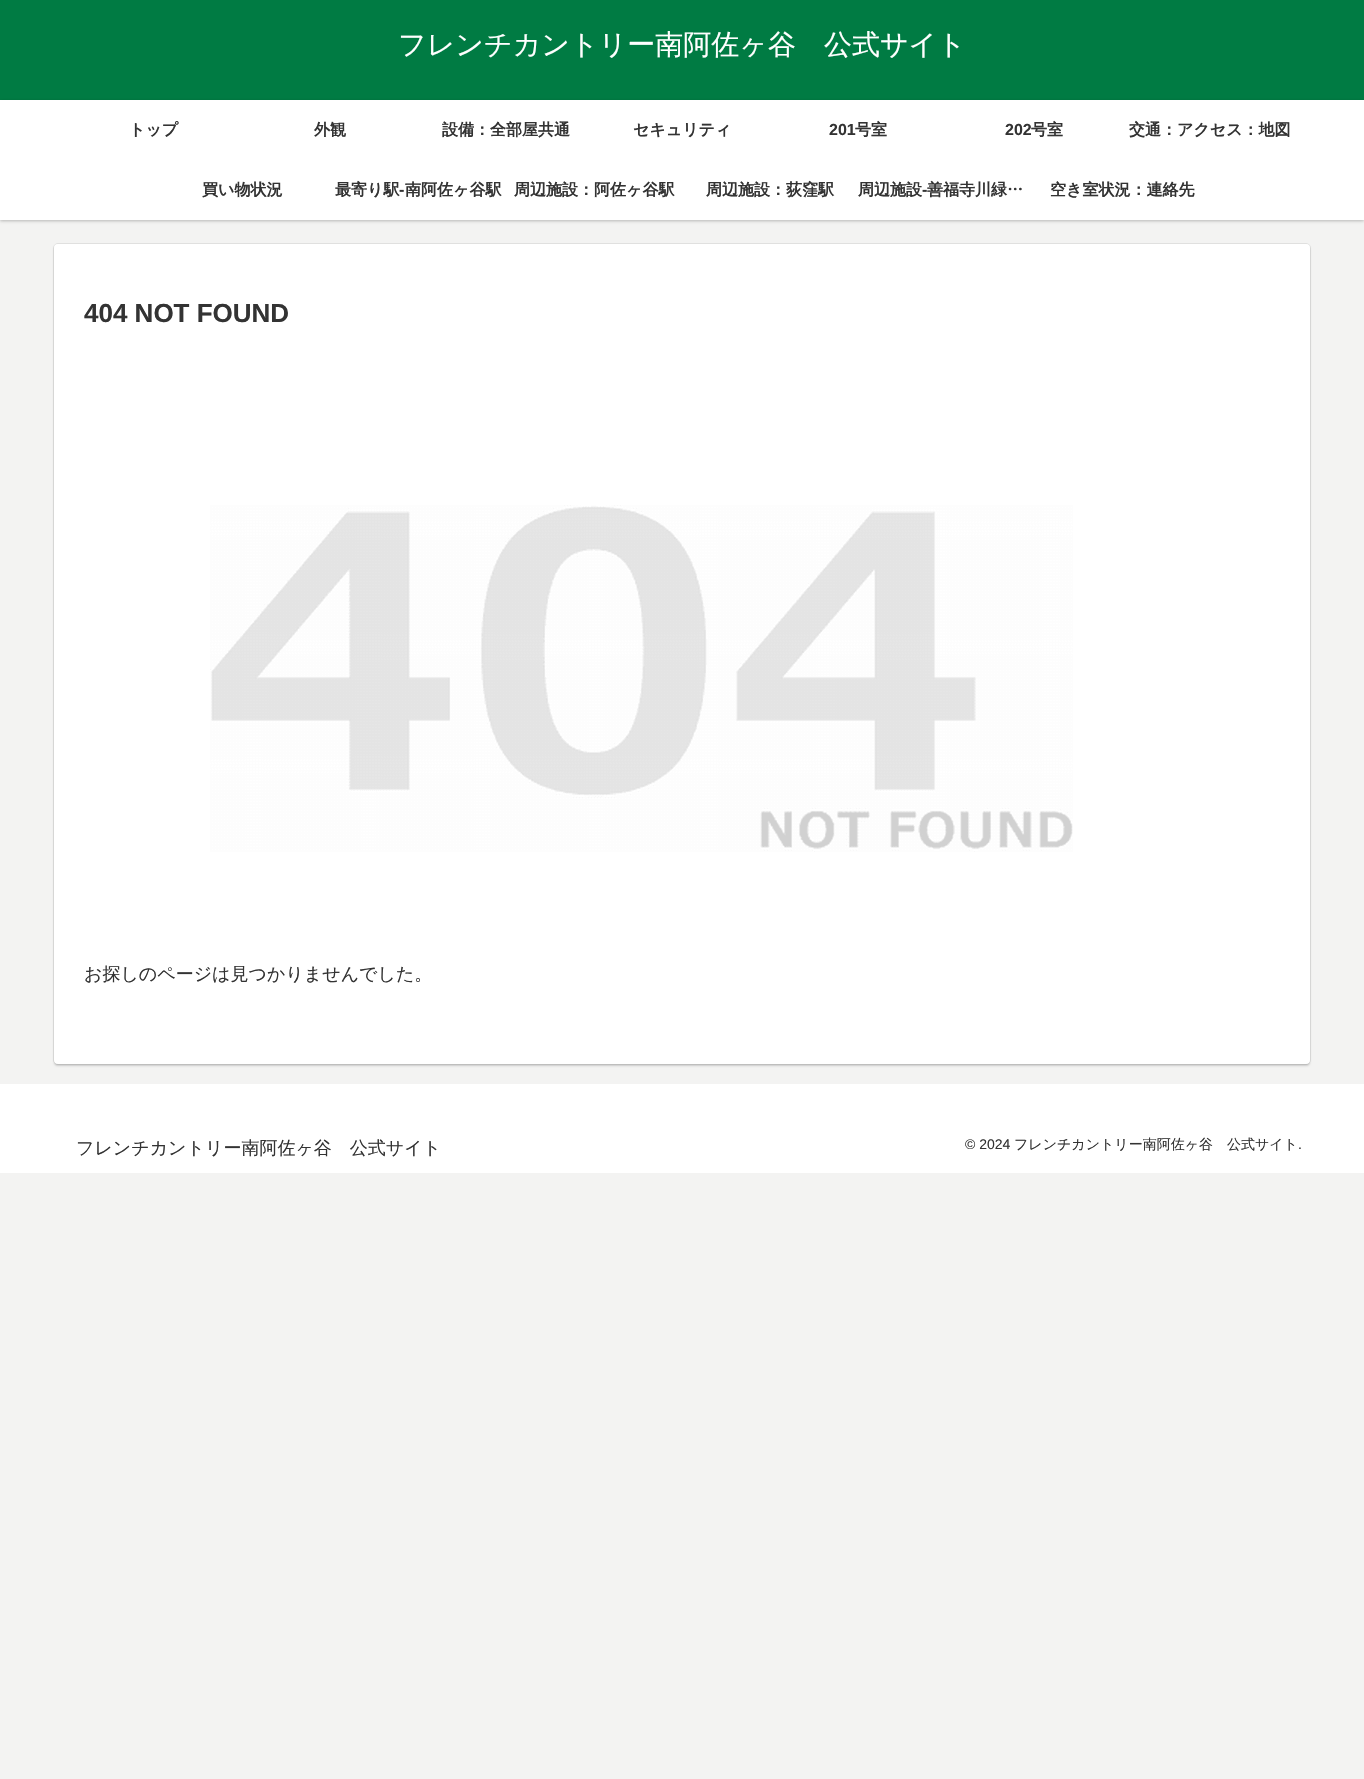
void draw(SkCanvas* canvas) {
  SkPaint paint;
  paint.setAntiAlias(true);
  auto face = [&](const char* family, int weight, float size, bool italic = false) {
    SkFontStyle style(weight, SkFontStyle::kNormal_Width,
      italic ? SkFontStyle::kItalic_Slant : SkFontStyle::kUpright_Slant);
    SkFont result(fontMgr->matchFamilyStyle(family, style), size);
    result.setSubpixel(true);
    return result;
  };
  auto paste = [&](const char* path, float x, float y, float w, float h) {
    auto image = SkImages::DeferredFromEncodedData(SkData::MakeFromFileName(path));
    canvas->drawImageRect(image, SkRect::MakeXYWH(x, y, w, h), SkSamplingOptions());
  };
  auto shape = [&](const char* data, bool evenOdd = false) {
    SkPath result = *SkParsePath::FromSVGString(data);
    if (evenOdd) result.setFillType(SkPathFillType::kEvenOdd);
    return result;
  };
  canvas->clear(0xfff3f3f2);
  paint.setColor(0xffffffff);
  canvas->drawRect(SkRect::MakeXYWH(0, 100, 1364, 120), paint);
  paint.setColor(0xff007b43);
  canvas->drawRect(SkRect::MakeXYWH(0, 0, 1364, 100), paint);
  canvas->save();
  canvas->clipPath(shape("M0 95H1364V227H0ZM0 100H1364V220H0Z", true), true);
  paint.setColor(0x40000000);
  paint.setMaskFilter(SkMaskFilter::MakeBlur(kNormal_SkBlurStyle, 1.5f));
  canvas->drawRect(SkRect::MakeXYWH(0, 101, 1364, 120), paint);
  paint.setMaskFilter(nullptr);
  canvas->restore();
  paint.setStroke(true);
  paint.setStrokeWidth(1);
  paint.setColor(0xffe0e0df);
  canvas->drawRoundRect(SkRect::MakeXYWH(53.5f, 243.5f, 1257, 821), 4.5f, 4.5f, paint);
  paint.setStroke(false);
  paint.setColor(0x29000000);
  paint.setMaskFilter(SkMaskFilter::MakeBlur(kNormal_SkBlurStyle, 1));
  canvas->drawRoundRect(SkRect::MakeXYWH(54, 246, 1256, 820), 4, 4, paint);
  paint.setMaskFilter(nullptr);
  paint.setColor(0xffffffff);
  canvas->drawRoundRect(SkRect::MakeXYWH(54, 244, 1256, 820), 4, 4, paint);
  paste("img/1.png", 210, 505, 863, 347);
  canvas->drawRect(SkRect::MakeXYWH(0, 1084, 1364, 89), paint);
  auto f0 = face("WenQuanYi Zen Hei", 500, 28);
  canvas->drawString("フレンチカントリー南阿佐ヶ谷　公式サイト", 398, 54, f0, paint);
  auto f1 = face("WenQuanYi Zen Hei", 700, 16);
  paint.setColor(0xff333333);
  {
    const struct { const char* s; float x, y; } items[] = {
      {"トップ", 129, 135},
      {"外観", 314, 135},
      {"設備：全部屋共通", 442, 135},
      {"セキュリティ", 633, 135},
    };
    for (auto [s, x, y] : items) {
      canvas->drawString(s, x, y, f1, paint);
    }
  }
  auto f2 = face("Liberation Sans", 700, 16);
  canvas->drawString("201", 829, 135, f2, paint);
  canvas->drawString("号室", 855, 135, f1, paint);
  canvas->drawString("202", 1005, 135, f2, paint);
  {
    const struct { const char* s; float x, y; } items[] = {
      {"号室", 1031, 135},
      {"交通：アクセス：地図", 1129, 135},
      {"買い物状況", 202, 195},
      {"最寄り駅", 335, 195},
    };
    for (auto [s, x, y] : items) {
      canvas->drawString(s, x, y, f1, paint);
    }
  }
  canvas->drawString("-", 399, 195, f2, paint);
  {
    const struct { const char* s; float x, y; } items[] = {
      {"南阿佐ヶ谷駅", 405, 195},
      {"周辺施設：阿佐ヶ谷駅", 514, 195},
      {"周辺施設：荻窪駅", 706, 195},
      {"周辺施設", 858, 195},
    };
    for (auto [s, x, y] : items) {
      canvas->drawString(s, x, y, f1, paint);
    }
  }
  canvas->drawString("-", 922, 195, f2, paint);
  canvas->drawString("善福寺川緑…", 927, 195, f1, paint);
  canvas->drawString("空き室状況：連絡先", 1050, 195, f1, paint);
  auto f3 = face("Liberation Sans", 700, 26);
  canvas->drawString("404 NOT FOUND", 84, 322, f3, paint);
  auto f4 = face("WenQuanYi Zen Hei", 500, 18);
  canvas->drawString("お探しのページは見つかりませんでした。", 84, 980, f4, paint);
  canvas->drawString("フレンチカントリー南阿佐ヶ谷　公式サイト", 76, 1154, f4, paint);
  auto f5 = face("Liberation Sans", 400, 14);
  canvas->drawString("© 2024", 965, 1149, f5, paint);
  auto f6 = face("WenQuanYi Zen Hei", 500, 14);
  canvas->drawString("フレンチカントリー南阿佐ヶ谷　公式サイト", 1014, 1149, f6, paint);
  canvas->drawString(".", 1298, 1149, f5, paint);
}
